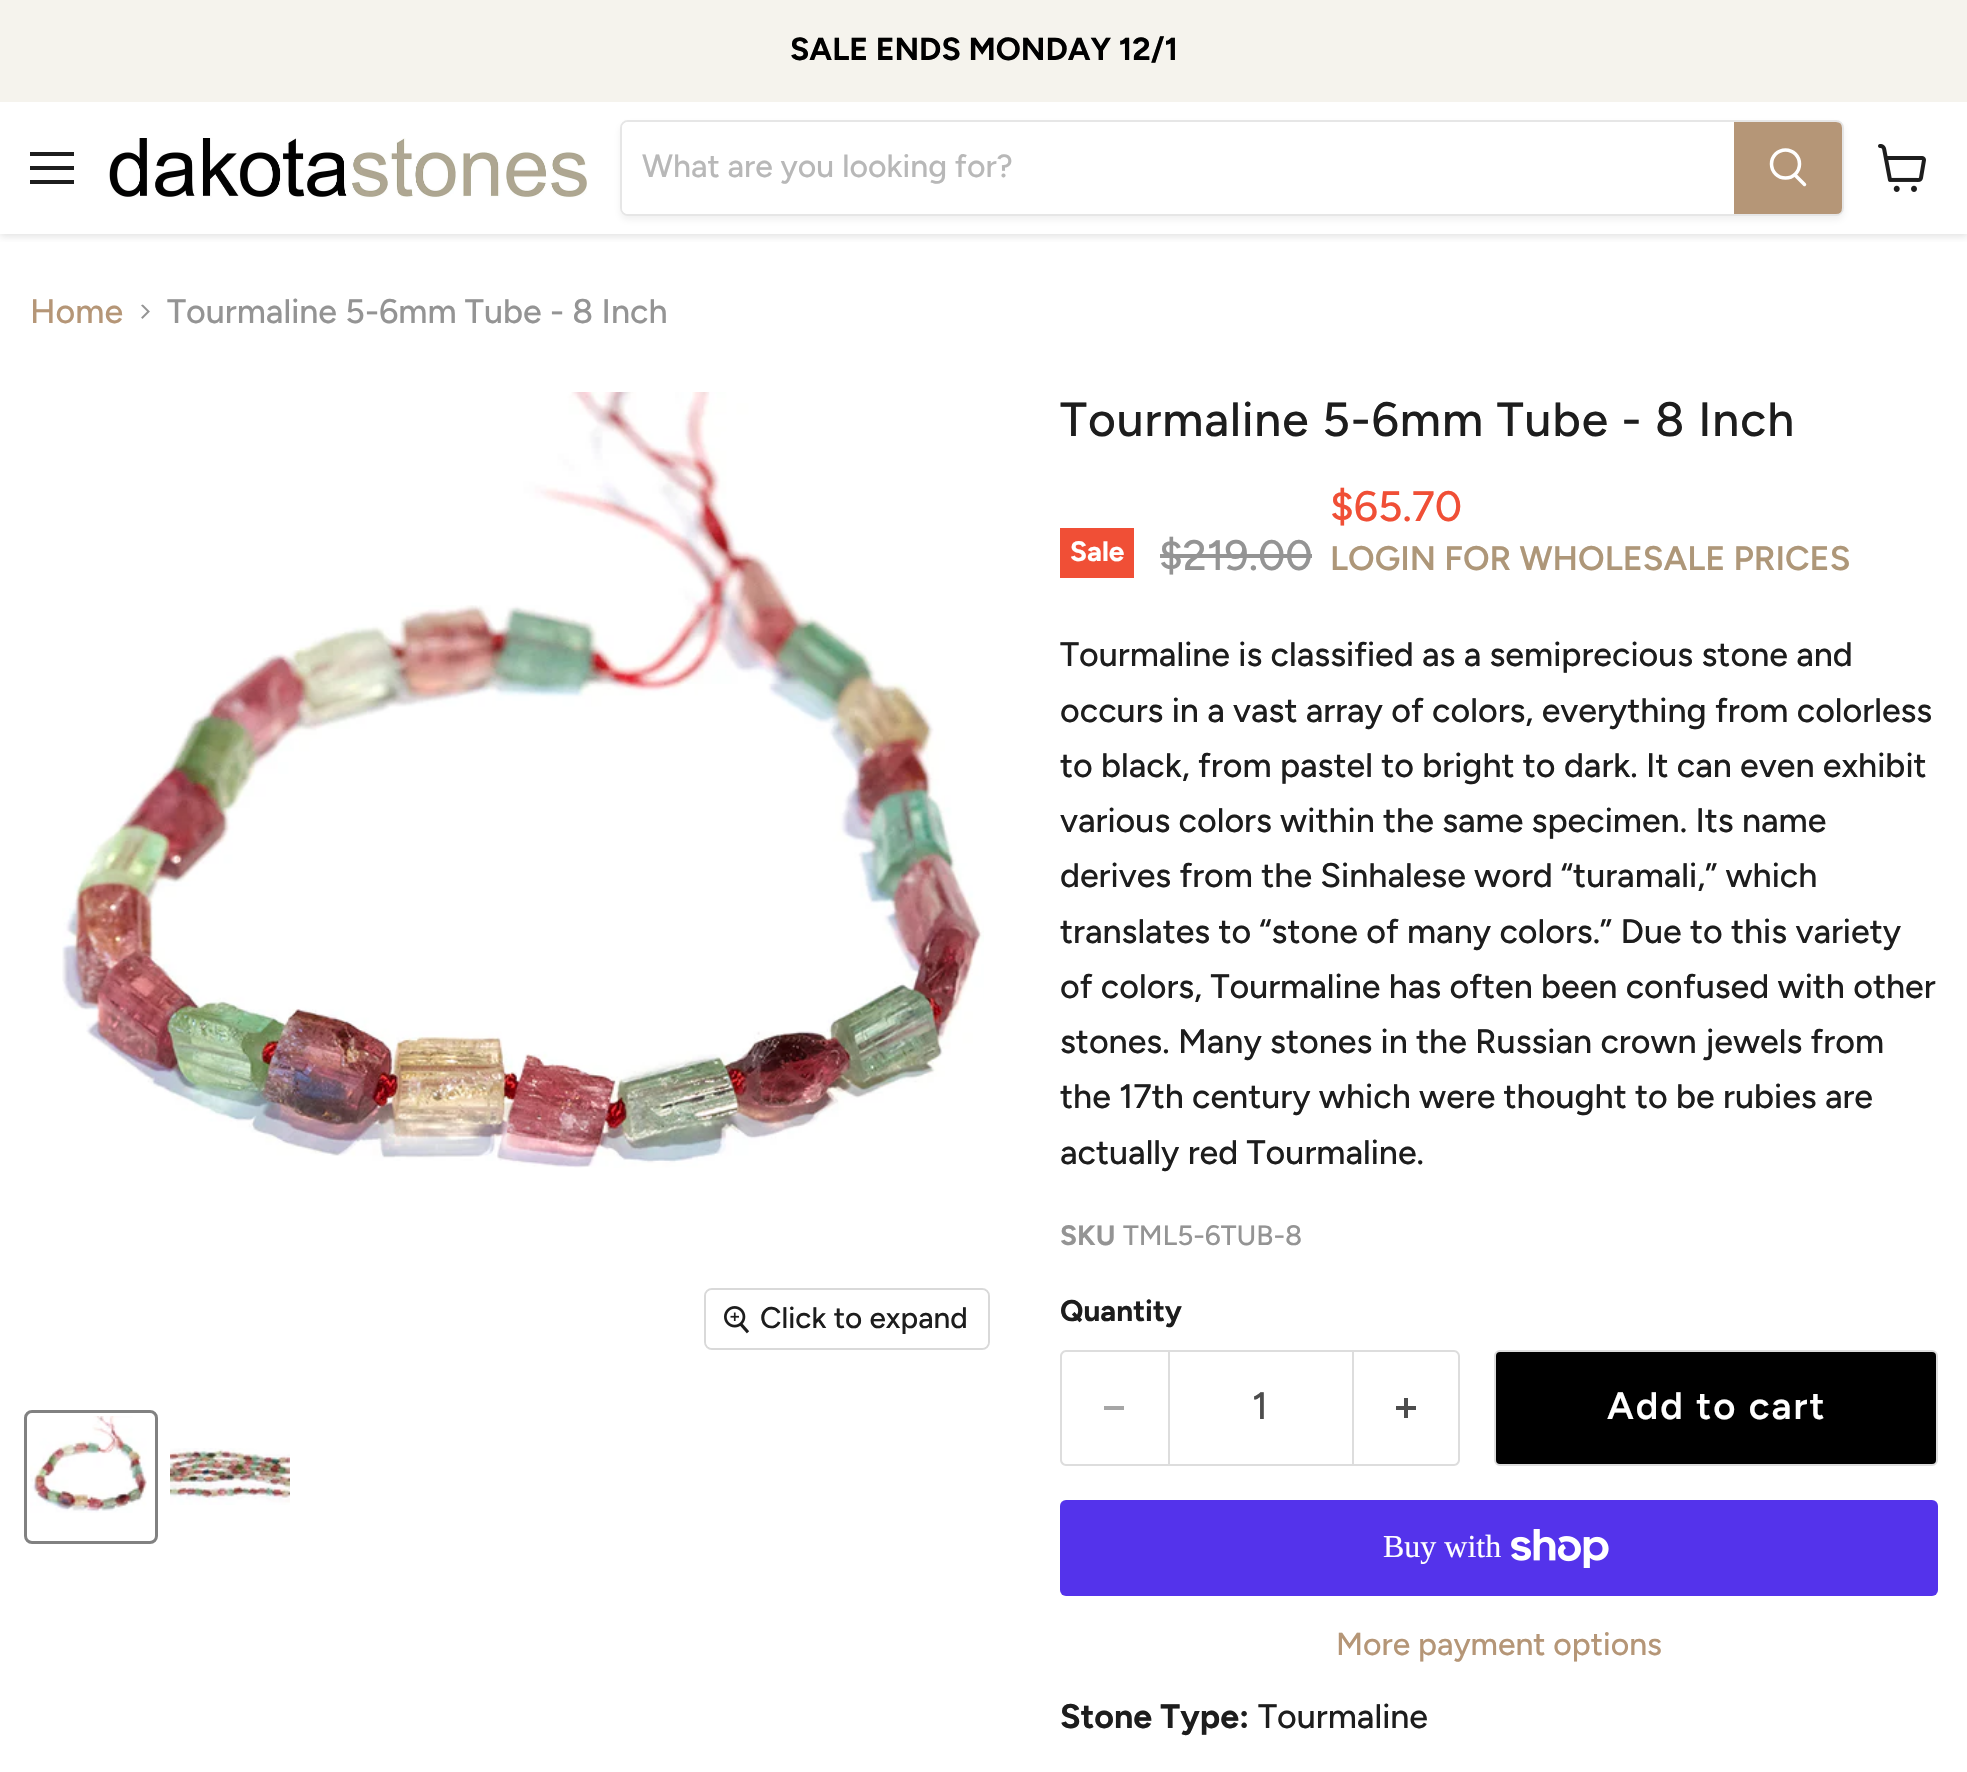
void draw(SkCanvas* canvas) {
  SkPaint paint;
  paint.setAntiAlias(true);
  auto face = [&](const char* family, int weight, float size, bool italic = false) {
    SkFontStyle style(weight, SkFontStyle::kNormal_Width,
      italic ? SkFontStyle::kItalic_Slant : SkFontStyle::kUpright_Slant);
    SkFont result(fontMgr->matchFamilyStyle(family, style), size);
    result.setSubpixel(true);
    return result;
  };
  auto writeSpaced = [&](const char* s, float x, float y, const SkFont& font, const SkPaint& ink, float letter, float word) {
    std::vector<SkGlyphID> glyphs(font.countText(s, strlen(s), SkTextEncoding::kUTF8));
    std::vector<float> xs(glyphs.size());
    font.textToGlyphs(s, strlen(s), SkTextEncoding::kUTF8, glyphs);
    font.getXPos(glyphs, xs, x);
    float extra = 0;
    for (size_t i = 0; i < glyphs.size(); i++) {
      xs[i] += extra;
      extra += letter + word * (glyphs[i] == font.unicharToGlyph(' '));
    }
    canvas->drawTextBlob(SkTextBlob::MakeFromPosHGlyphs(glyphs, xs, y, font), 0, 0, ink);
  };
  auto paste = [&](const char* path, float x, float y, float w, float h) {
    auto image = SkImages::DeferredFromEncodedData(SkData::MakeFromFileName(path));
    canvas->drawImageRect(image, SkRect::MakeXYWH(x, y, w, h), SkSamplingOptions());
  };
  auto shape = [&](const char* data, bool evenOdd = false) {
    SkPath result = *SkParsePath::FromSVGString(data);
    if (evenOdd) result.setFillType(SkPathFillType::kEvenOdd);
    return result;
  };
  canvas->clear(0xffffffff);
  canvas->save();
  canvas->clipRect(SkRect::MakeXYWH(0, 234, 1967, 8));
  paint.setColor(0x40808080);
  paint.setMaskFilter(SkMaskFilter::MakeBlur(kNormal_SkBlurStyle, 4));
  canvas->drawRect(SkRect::MakeXYWH(0, 104, 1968, 132), paint);
  paint.setMaskFilter(nullptr);
  canvas->restore();
  {
    const struct { float x, y, w, h; SkColor color; } items[] = {
      {0, 0, 1967, 102, 0xfff5f3ed},
      {30, 152, 44, 4, 0xff1d1d1d},
      {30, 166, 44, 4, 0xff1d1d1d},
      {30, 180, 44, 4, 0xff1d1d1d},
    };
    for (auto [x, y, w, h, color] : items) {
      paint.setColor(color);
      canvas->drawRect(SkRect::MakeXYWH(x, y, w, h), paint);
    }
  }
  paste("img/1.png", 109, 138, 478, 60);
  canvas->save();
  canvas->clipPath(shape("M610 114H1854V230H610ZM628 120H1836C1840.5 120 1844 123.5 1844 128V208C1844 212.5 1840.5 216 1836 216H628C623.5 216 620 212.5 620 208V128C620 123.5 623.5 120 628 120Z", true), true);
  paint.setColor(0x1c808080);
  paint.setMaskFilter(SkMaskFilter::MakeBlur(kNormal_SkBlurStyle, 3));
  canvas->drawRoundRect(SkRect::MakeXYWH(620, 124, 1224, 96), 8, 8, paint);
  paint.setMaskFilter(nullptr);
  canvas->restore();
  paint.setStroke(true);
  paint.setStrokeWidth(2);
  paint.setColor(0x33808080);
  canvas->drawRoundRect(SkRect::MakeXYWH(621, 121, 1222, 94), 7, 7, paint);
  paint.setStroke(false);
  paint.setColor(0xffffffff);
  canvas->drawPath(shape("M628 122H1734V214H628C624.5 214 622 211.5 622 208V128C622 124.5 624.5 122 628 122Z"), paint);
  paint.setColor(0xffb59677);
  canvas->drawPath(shape("M1735 123H1836C1839 123 1841 125 1841 128V208C1841 211 1839 213 1836 213H1735Z"), paint);
  paint.setStroke(true);
  canvas->drawPath(shape("M1735 123H1836C1839 123 1841 125 1841 128V208C1841 211 1839 213 1836 213H1735Z"), paint);
  paint.setStrokeWidth(3.5f);
  paint.setStrokeCap(SkPaint::kRound_Cap);
  paint.setColor(0xffffffff);
  canvas->drawPath(shape("M1804.5 184.5L1795 175"), paint);
  paint.setStrokeCap(SkPaint::kButt_Cap);
  canvas->drawCircle(1785.5f, 164, 14, paint);
  paste("img/2.png", 1878, 144, 48, 48);
  paste("img/3.png", 141, 304, 9, 15);
  paste("img/4.png", 62, 392, 922, 776);
  paint.setStrokeWidth(2);
  paint.setColor(0xffd9d9d9);
  canvas->drawRoundRect(SkRect::MakeXYWH(705, 1289, 284, 60), 7, 7, paint);
  paint.setStroke(false);
  paint.setColor(0xe6ffffff);
  canvas->drawRoundRect(SkRect::MakeXYWH(706, 1290, 282, 58), 6, 6, paint);
  paste("img/5.png", 724, 1306, 26, 28);
  paint.setStroke(true);
  paint.setStrokeWidth(3);
  paint.setColor(0xff818181);
  canvas->drawRoundRect(SkRect::MakeXYWH(25.5f, 1411.5f, 131, 131), 6.5f, 6.5f, paint);
  paste("img/6.png", 30, 1416, 117, 97);
  paste("img/7.png", 170, 1448, 120, 57);
  paint.setStroke(false);
  paint.setColor(0xfff04f36);
  canvas->drawRect(SkRect::MakeXYWH(1060, 528, 74, 50), paint);
  paint.setColor(0xff949494);
  canvas->drawRect(SkRect::MakeXYWH(1160, 554, 152, 4), paint);
  paint.setColor(0xffdddddd);
  canvas->drawPath(shape("M1066 1350H1168V1466H1066C1063 1466 1060 1463 1060 1460V1356C1060 1353 1063 1350 1066 1350ZM1066 1352H1168V1464H1066C1064 1464 1062 1462 1062 1460V1356C1062 1354 1064 1352 1066 1352Z", true), paint);
  paint.setColor(0xffa6a6a6);
  canvas->drawRect(SkRect::MakeXYWH(1104, 1406, 20, 4), paint);
  paint.setStroke(true);
  paint.setStrokeWidth(2);
  paint.setColor(0xffdddddd);
  canvas->drawRect(SkRect::MakeXYWH(1169, 1351, 184, 114), paint);
  paint.setStroke(false);
  canvas->drawPath(shape("M1354 1350H1454C1457 1350 1460 1353 1460 1356V1460C1460 1463 1457 1466 1454 1466H1354ZM1354 1352H1454C1456 1352 1458 1354 1458 1356V1460C1458 1462 1456 1464 1454 1464H1354Z", true), paint);
  paste("img/8.png", 1396, 1398, 20, 20);
  paint.setColor(0xff000000);
  canvas->drawRoundRect(SkRect::MakeXYWH(1495, 1351, 442, 114), 5, 5, paint);
  paint.setStroke(true);
  paint.setColor(0xffdddddd);
  canvas->drawRoundRect(SkRect::MakeXYWH(1495, 1351, 442, 114), 5, 5, paint);
  paint.setStroke(false);
  paint.setColor(0xff5433eb);
  canvas->drawRoundRect(SkRect::MakeXYWH(1060, 1500, 878, 96), 6, 6, paint);
  paste("img/9.png", 1511, 1529, 98, 39);
  auto f0 = face("Figtree", 700, 31.9f);
  paint.setColor(0xff000000);
  canvas->drawString("SALE ENDS MONDAY 12/1", 790, 60, f0, paint);
  auto f1 = face("Figtree", 500, 32);
  paint.setColor(0xffb8b8b8);
  canvas->drawString("What are you looking for?", 642, 177, f1, paint);
  auto f2 = face("Figtree", 500, 34);
  paint.setColor(0xffb59677);
  canvas->drawString("Home", 30, 323, f2, paint);
  paint.setColor(0xff949494);
  canvas->drawString("Tourmaline 5-6mm Tube - 8 Inch", 167, 323, f2, paint);
  auto f3 = face("Figtree", 500, 29.75f);
  paint.setColor(0xff1d1d1d);
  canvas->drawString("Click to expand", 760, 1328, f3, paint);
  auto f4 = face("Figtree", 500, 48);
  writeSpaced("Tourmaline 5-6mm Tube - 8 Inch", 1060, 436, f4, paint, 0.95f, 0);
  auto f5 = face("Figtree", 700, 28);
  paint.setColor(0xffffffff);
  canvas->drawString("Sale", 1070, 561, f5, paint);
  auto f6 = face("Figtree", 500, 42.5f);
  paint.setColor(0xff949494);
  canvas->drawString("$219.00", 1159, 570, f6, paint);
  paint.setColor(0xfff04f36);
  canvas->drawString("$65.70", 1330, 521, f6, paint);
  auto f7 = face("Figtree", 600, 34);
  paint.setColor(0xffae9779);
  canvas->drawString("LOGIN FOR WHOLESALE PRICES", 1330, 570, f7, paint);
  paint.setColor(0xff1d1d1d);
  {
    const struct { const char* s; float x, y; } items[] = {
      {"Tourmaline is classified as a semiprecious stone and", 1060, 666},
      {"occurs in a vast array of colors, everything from colorless", 1060, 722},
      {"to black, from pastel to bright to dark. It can even exhibit", 1060, 777},
      {"various colors within the same specimen. Its name", 1060, 832},
      {"derives from the Sinhalese word “turamali,” which", 1060, 887},
      {"translates to “stone of many colors.” Due to this variety", 1060, 943},
      {"of colors, Tourmaline has often been confused with other", 1060, 998},
      {"stones. Many stones in the Russian crown jewels from", 1060, 1053},
      {"the 17th century which were thought to be rubies are", 1060, 1108},
      {"actually red Tourmaline.", 1060, 1164},
    };
    for (auto [s, x, y] : items) {
      canvas->drawString(s, x, y, f2, paint);
    }
  }
  paint.setColor(0xff949494);
  canvas->drawString("SKU", 1060, 1245, f5, paint);
  auto f8 = face("Figtree", 500, 28);
  canvas->drawString("TML5-6TUB-8", 1123, 1245, f8, paint);
  auto f9 = face("Figtree", 700, 29.75f);
  paint.setColor(0xff1d1d1d);
  canvas->drawString("Quantity", 1060, 1321, f9, paint);
  auto f10 = face("Figtree", 500, 38.25f);
  paint.setColor(0xff4d4d4d);
  canvas->drawString("1", 1252, 1419, f10, paint);
  auto f11 = face("Figtree", 600, 38.25f);
  paint.setColor(0xffffffff);
  writeSpaced("Add to cart", 1607, 1419, f11, paint, 2, 0);
  auto f12 = face("Liberation Serif", 400, 32);
  canvas->drawString("Buy with", 1383, 1557, f12, paint);
  auto f13 = face("Figtree", 500, 31.9f);
  paint.setColor(0xffb59677);
  canvas->drawString("More payment options", 1336, 1655, f13, paint);
  auto f14 = face("Figtree", 700, 34);
  paint.setColor(0xff1d1d1d);
  canvas->drawString("Stone Type:", 1060, 1728, f14, paint);
  canvas->drawString("Tourmaline", 1258, 1728, f2, paint);
}
